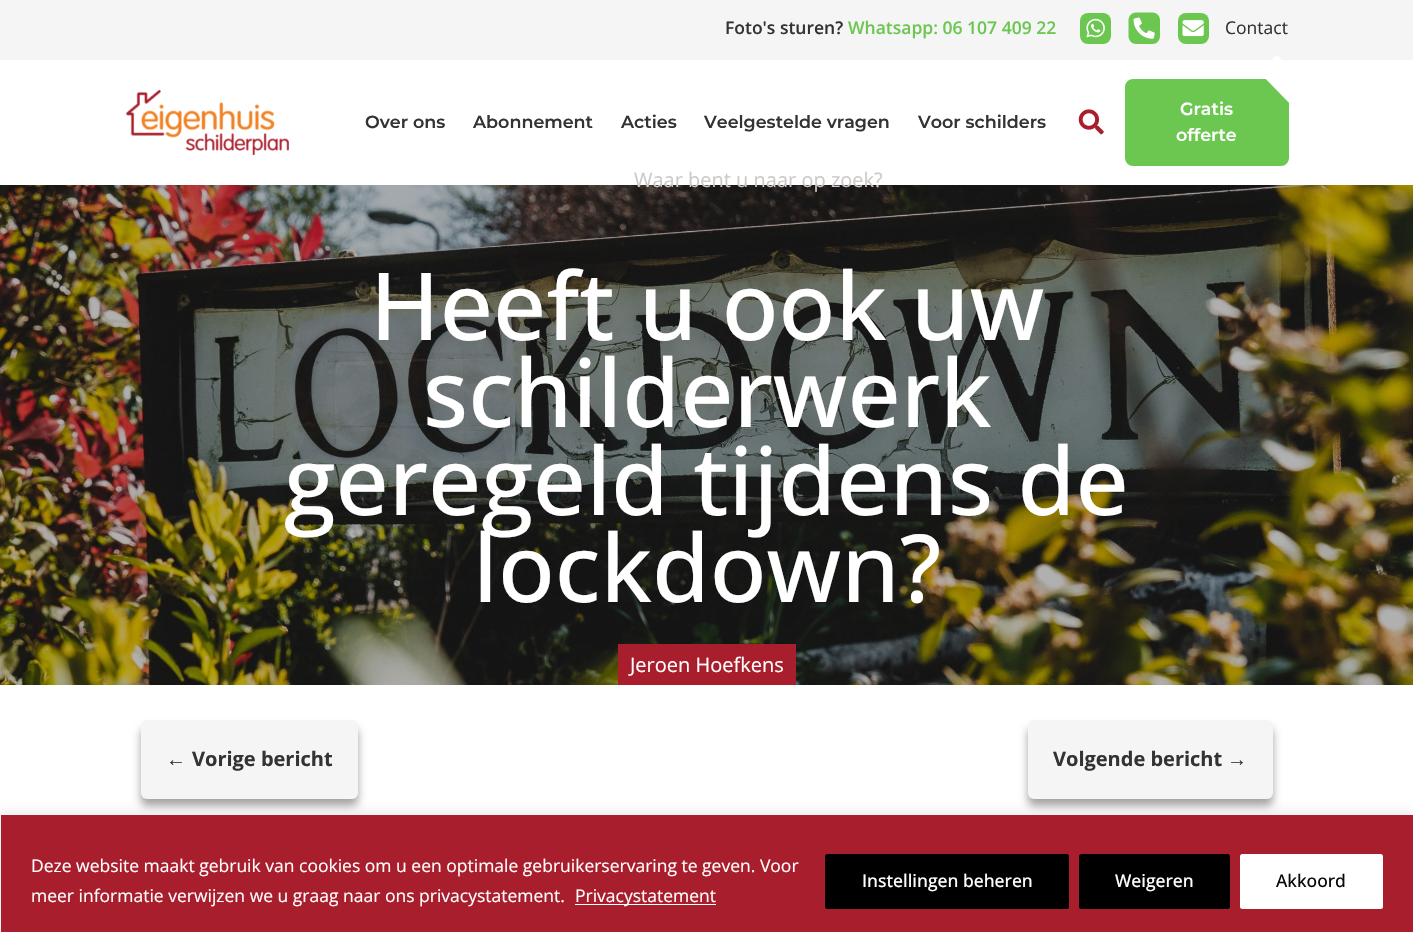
void draw(SkCanvas* canvas) {
  SkPaint paint;
  paint.setAntiAlias(true);
  auto face = [&](const char* family, int weight, float size, bool italic = false) {
    SkFontStyle style(weight, SkFontStyle::kNormal_Width,
      italic ? SkFontStyle::kItalic_Slant : SkFontStyle::kUpright_Slant);
    SkFont result(fontMgr->matchFamilyStyle(family, style), size);
    result.setSubpixel(true);
    return result;
  };
  auto paste = [&](const char* path, float x, float y, float w, float h) {
    auto image = SkImages::DeferredFromEncodedData(SkData::MakeFromFileName(path));
    canvas->drawImageRect(image, SkRect::MakeXYWH(x, y, w, h), SkSamplingOptions());
  };
  auto shape = [&](const char* data, bool evenOdd = false) {
    SkPath result = *SkParsePath::FromSVGString(data);
    if (evenOdd) result.setFillType(SkPathFillType::kEvenOdd);
    return result;
  };
  canvas->clear(0xffffffff);
  paint.setColor(0xfff5f5f5);
  canvas->drawRect(SkRect::MakeXYWH(0, 0, 1413, 60), paint);
  paint.setColor(0xff6cc751);
  canvas->drawRoundRect(SkRect::MakeXYWH(1080, 13, 31, 31), 8, 8, paint);
  paste("img/1.png", 1086, 18, 19, 20);
  canvas->drawPath(shape("M1152.5 12.5H1136C1132 12.5 1128.5 16 1128.5 20V36C1128.5 40.5 1132 44 1136 44H1152.5C1156.5 44 1160 40.5 1160 36V20C1160 16 1156.5 12.5 1152.5 12.5Z"), paint);
  paste("img/2.png", 1133, 17, 22, 22);
  canvas->drawRoundRect(SkRect::MakeXYWH(1178, 13, 31, 31), 8, 8, paint);
  paste("img/3.png", 1182, 20, 22, 17);
  paste("img/4.png", 125, 90, 164, 65);
  paste("img/5.png", 1078, 109, 26, 26);
  canvas->drawRoundRect(SkRect::MakeXYWH(1126.5f, 80.5f, 161, 84), 6.5f, 6.5f, paint);
  paint.setStroke(true);
  paint.setStrokeWidth(3);
  canvas->drawRoundRect(SkRect::MakeXYWH(1126.5f, 80.5f, 161, 84), 6.5f, 6.5f, paint);
  paint.setStroke(false);
  paint.setColor(0xffffffff);
  canvas->drawPath(shape("M1277 55L1312 90L1294 108L1259 72Z"), paint);
  paste("img/6.png", 0, 185, 1413, 500);
  paint.setColor(0xffa91e2c);
  canvas->drawRect(SkRect::MakeXYWH(618, 644, 178, 41), paint);
  paint.setColor(0x5c000000);
  paint.setMaskFilter(SkMaskFilter::MakeBlur(kNormal_SkBlurStyle, 4));
  canvas->drawRoundRect(SkRect::MakeXYWH(141, 728, 217, 78), 6, 6, paint);
  paint.setMaskFilter(nullptr);
  paint.setColor(0xfff5f5f5);
  canvas->drawRoundRect(SkRect::MakeXYWH(141, 720, 217, 79), 6, 6, paint);
  paint.setColor(0x5c000000);
  paint.setMaskFilter(SkMaskFilter::MakeBlur(kNormal_SkBlurStyle, 4));
  canvas->drawRoundRect(SkRect::MakeXYWH(1028, 728, 245, 78), 6, 6, paint);
  paint.setMaskFilter(nullptr);
  paint.setColor(0xfff5f5f5);
  canvas->drawRoundRect(SkRect::MakeXYWH(1028, 720, 245, 79), 6, 6, paint);
  paint.setColor(0x4dacabab);
  paint.setMaskFilter(SkMaskFilter::MakeBlur(kNormal_SkBlurStyle, 6));
  canvas->drawRect(SkRect::MakeXYWH(0, 813, 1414, 118), paint);
  paint.setMaskFilter(nullptr);
  paint.setColor(0xffa91e2c);
  canvas->drawRect(SkRect::MakeXYWH(0.5f, 814.5f, 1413, 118), paint);
  paint.setStroke(true);
  paint.setStrokeWidth(1);
  paint.setColor(0xfff4f4f4);
  canvas->drawRect(SkRect::MakeXYWH(0.5f, 814.5f, 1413, 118), paint);
  paint.setStroke(false);
  paint.setColor(0xffffffff);
  canvas->drawRect(SkRect::MakeXYWH(575, 904, 141, 1), paint);
  paint.setColor(0xff000000);
  canvas->drawRoundRect(SkRect::MakeXYWH(826.5f, 855.5f, 241, 52), 1, 1, paint);
  paint.setStroke(true);
  paint.setStrokeWidth(3);
  canvas->drawRoundRect(SkRect::MakeXYWH(826.5f, 855.5f, 241, 52), 1, 1, paint);
  paint.setStroke(false);
  canvas->drawRoundRect(SkRect::MakeXYWH(1080.5f, 855.5f, 148, 52), 1, 1, paint);
  paint.setStroke(true);
  canvas->drawRoundRect(SkRect::MakeXYWH(1080.5f, 855.5f, 148, 52), 1, 1, paint);
  paint.setStroke(false);
  paint.setColor(0xffffffff);
  canvas->drawRoundRect(SkRect::MakeXYWH(1241.5f, 855.5f, 140, 52), 1, 1, paint);
  paint.setStroke(true);
  canvas->drawRoundRect(SkRect::MakeXYWH(1241.5f, 855.5f, 140, 52), 1, 1, paint);
  auto f0 = face("Open Sans", 600, 17.5f);
  paint.setStroke(false);
  paint.setColor(0xff333333);
  canvas->drawString("Foto's sturen?", 725, 34, f0, paint);
  paint.setColor(0xff6cc751);
  canvas->drawString("Whatsapp: 06 107 409 22", 848, 34, f0, paint);
  auto f1 = face("Open Sans", 400, 17.5f);
  paint.setColor(0xff333333);
  canvas->drawString("Contact", 1225, 34, f1, paint);
  auto f2 = face("Montserrat", 600, 17.5f);
  {
    const struct { const char* s; float x, y; } items[] = {
      {"Over ons", 365, 128},
      {"Abonnement", 473, 128},
      {"Acties", 621, 128},
      {"Veelgestelde vragen", 704, 128},
      {"Voor schilders", 918, 128},
    };
    for (auto [s, x, y] : items) {
      canvas->drawString(s, x, y, f2, paint);
    }
  }
  auto f3 = face("Open Sans", 400, 20);
  paint.setColor(0xffcbcac9);
  canvas->drawString("Waar bent u naar op zoek?", 634, 187, f3, paint);
  paint.setColor(0xffffffff);
  canvas->drawString("Gratis", 1180, 115, f2, paint);
  canvas->drawString("offerte", 1176, 141, f2, paint);
  auto f4 = face("Open Sans", 500, 93.75f);
  {
    const struct { const char* s; float x, y; } items[] = {
      {"Heeft u ook uw", 370, 340},
      {"schilderwerk", 423, 427},
      {"geregeld tijdens de", 284, 515},
      {"lockdown?", 473, 602},
    };
    for (auto [s, x, y] : items) {
      canvas->drawString(s, x, y, f4, paint);
    }
  }
  canvas->drawString("Jeroen Hoefkens", 630, 672, f3, paint);
  auto f5 = face("Liberation Sans", 700, 20);
  paint.setColor(0xff333333);
  canvas->drawString("←", 166, 766, f5, paint);
  auto f6 = face("Open Sans", 700, 20);
  canvas->drawString("Vorige bericht", 192, 766, f6, paint);
  canvas->drawString("Volgende bericht", 1053, 766, f6, paint);
  canvas->drawString("→", 1227, 766, f5, paint);
  paint.setColor(0xffffffff);
  {
    const struct { const char* s; float x, y; } items[] = {
      {"Deze website maakt gebruik van cookies om u een optimale gebruikerservaring te geven. Voor", 31, 872},
      {"meer informatie verwijzen we u graag naar ons privacystatement.", 31, 902},
      {"Privacystatement", 575, 902},
    };
    for (auto [s, x, y] : items) {
      canvas->drawString(s, x, y, f1, paint);
    }
  }
  auto f7 = face("Open Sans", 500, 17.5f);
  canvas->drawString("Instellingen beheren", 862, 887, f7, paint);
  canvas->drawString("Weigeren", 1115, 887, f7, paint);
  paint.setColor(0xff0a0a0a);
  canvas->drawString("Akkoord", 1276, 887, f7, paint);
}
